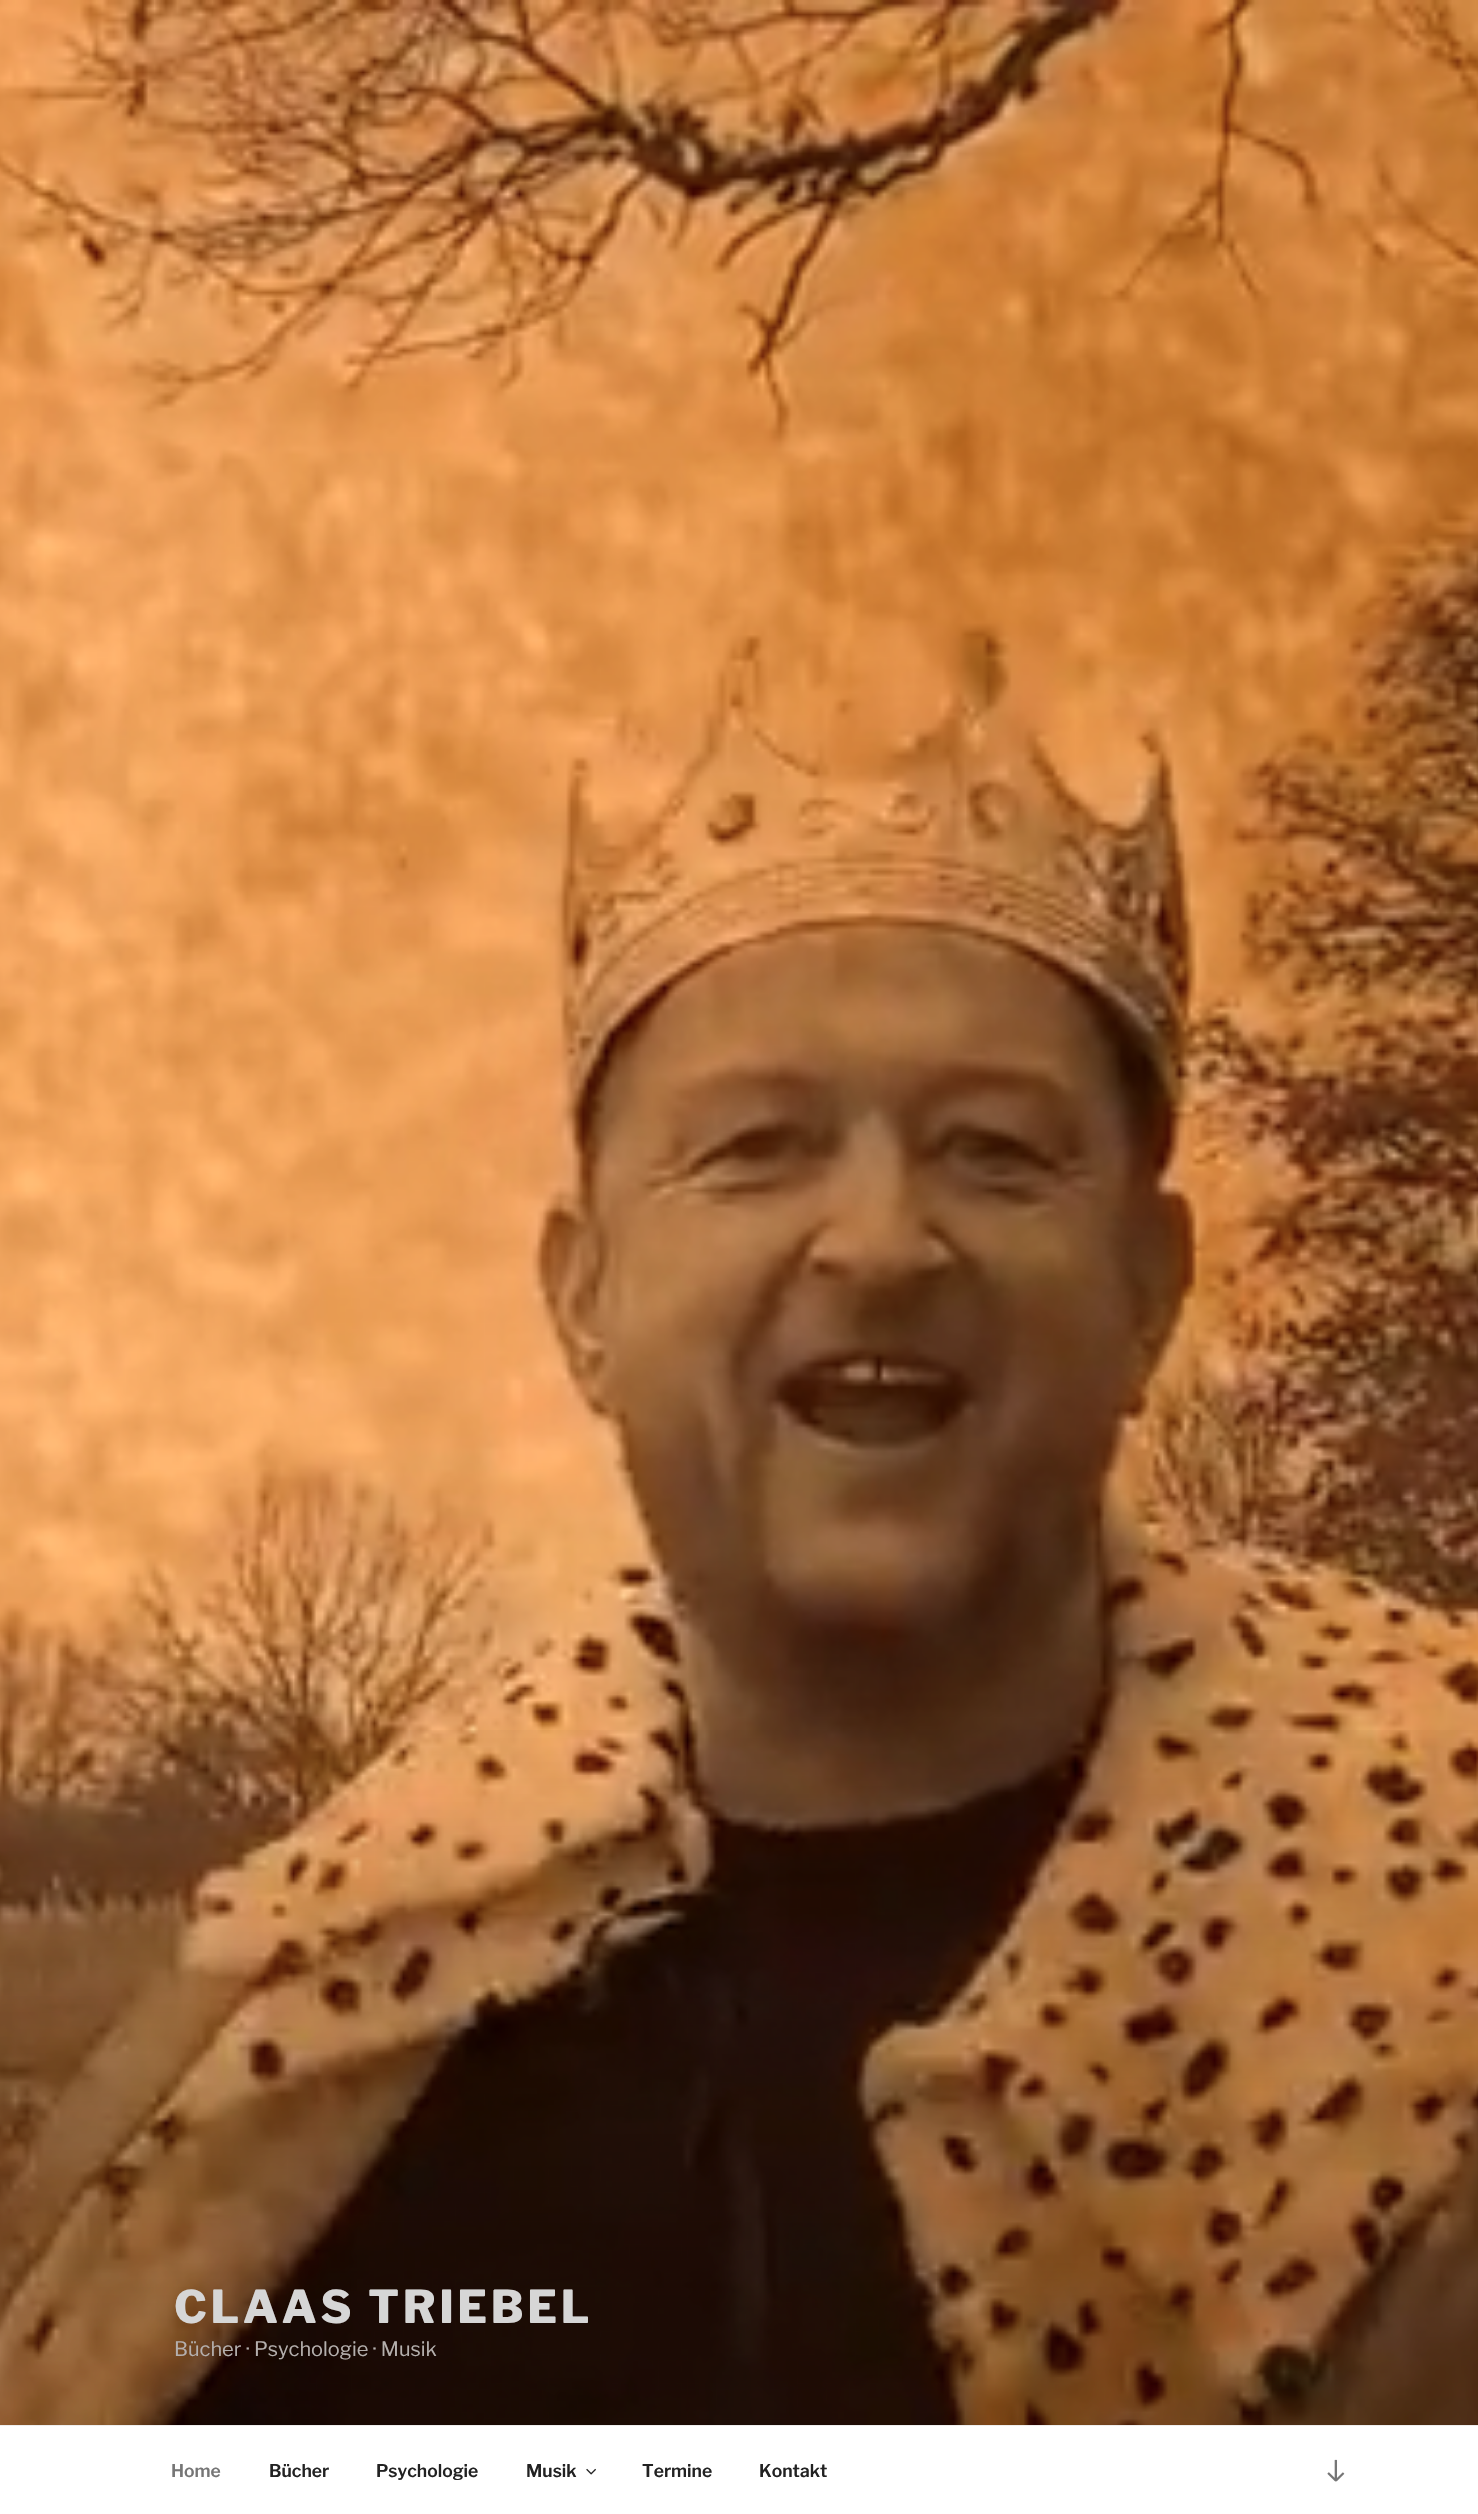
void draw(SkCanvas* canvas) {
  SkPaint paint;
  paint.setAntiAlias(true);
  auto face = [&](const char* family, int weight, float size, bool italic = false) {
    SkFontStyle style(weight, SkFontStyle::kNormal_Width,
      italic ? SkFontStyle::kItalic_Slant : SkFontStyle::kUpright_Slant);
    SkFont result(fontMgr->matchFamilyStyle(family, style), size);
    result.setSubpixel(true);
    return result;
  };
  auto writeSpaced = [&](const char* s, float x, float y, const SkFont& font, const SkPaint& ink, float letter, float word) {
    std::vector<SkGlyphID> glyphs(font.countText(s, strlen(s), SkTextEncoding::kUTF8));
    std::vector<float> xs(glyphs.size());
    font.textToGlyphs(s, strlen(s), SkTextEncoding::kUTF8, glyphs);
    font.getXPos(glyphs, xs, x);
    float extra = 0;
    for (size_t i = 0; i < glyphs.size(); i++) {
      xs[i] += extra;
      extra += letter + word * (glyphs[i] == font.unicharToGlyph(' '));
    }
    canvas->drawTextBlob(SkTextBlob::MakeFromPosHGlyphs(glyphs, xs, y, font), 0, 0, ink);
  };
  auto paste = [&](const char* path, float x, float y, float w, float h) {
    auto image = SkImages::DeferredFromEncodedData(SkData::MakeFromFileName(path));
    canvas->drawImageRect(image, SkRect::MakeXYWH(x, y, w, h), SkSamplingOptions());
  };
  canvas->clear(0xffffffff);
  paste("img/1.png", 0, 0, 1478, 2425);
  {
    const SkColor colors[] = {0x00000000, 0x4d000000, 0x4d000000};
    const float stops[] = {0, 0.75f, 1};
    const SkPoint ends[] = {{739, 1685}, {739, 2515}};
    paint.setShader(SkGradientShader::MakeLinear(ends, colors, stops, 3, SkTileMode::kClamp));
    paint.setAlpha(255);
  }
  canvas->drawRect(SkRect::MakeXYWH(0, 1730, 1478, 695), paint);
  paint.setShader(nullptr);
  paint.setColor(0xffeeeeee);
  canvas->drawRect(SkRect::MakeXYWH(0, 2425, 1478, 1), paint);
  paste("img/2.png", 586, 2468, 10, 7);
  paste("img/3.png", 1327, 2459, 18, 23);
  auto f0 = face("Libre Franklin", 100, 45);
  paint.setColor(0xffd6d6d6);
  writeSpaced("CLAAS TRIEBEL", 174, 2323, f0, paint, 3.6f, 0);
  auto f1 = face("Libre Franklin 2", 100, 20);
  paint.setColor(0xffb4afad);
  canvas->drawString("Bücher · Psychologie · Musik", 174, 2356, f1, paint);
  auto f2 = face("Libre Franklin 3", 100, 17.5f);
  paint.setColor(0xff767676);
  canvas->drawString("Home", 171, 2477, f2, paint);
  paint.setColor(0xff222222);
  {
    const struct { const char* s; float x, y; } items[] = {
      {"Bücher", 269, 2477},
      {"Psychologie", 376, 2477},
      {"Musik", 526, 2477},
      {"Termine", 642, 2477},
      {"Kontakt", 759, 2477},
    };
    for (auto [s, x, y] : items) {
      canvas->drawString(s, x, y, f2, paint);
    }
  }
}
